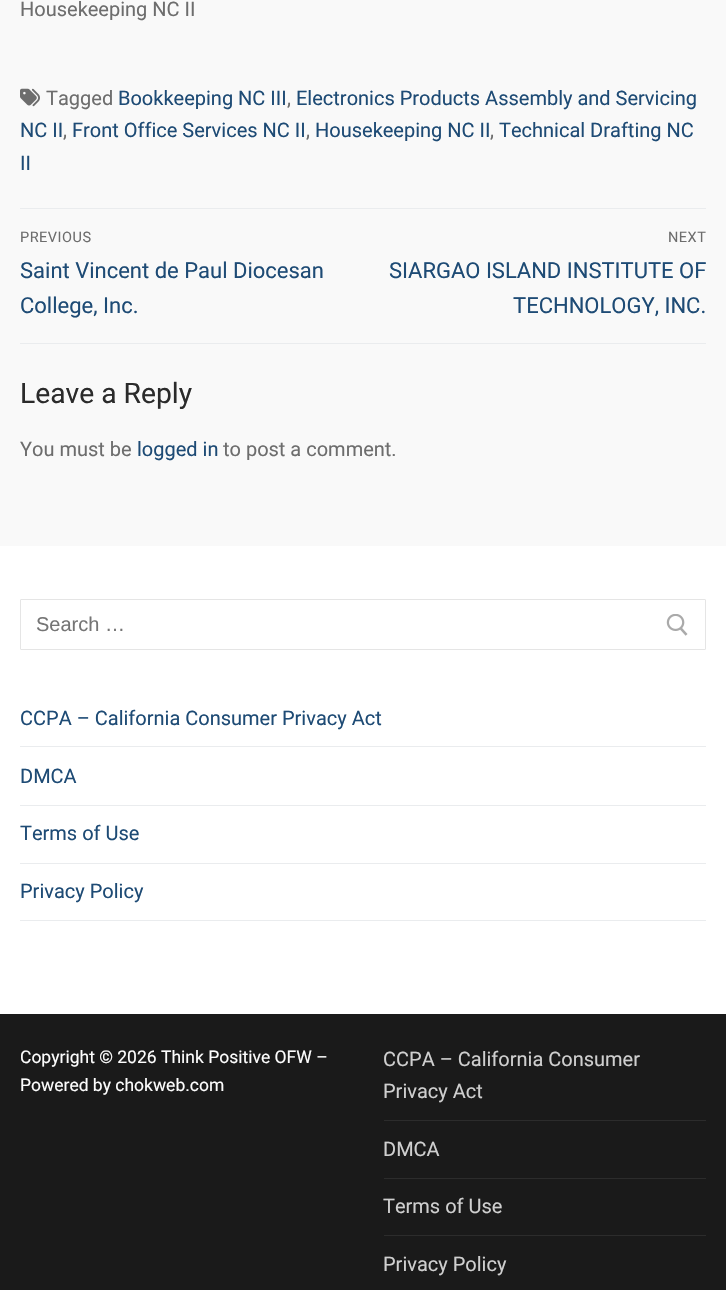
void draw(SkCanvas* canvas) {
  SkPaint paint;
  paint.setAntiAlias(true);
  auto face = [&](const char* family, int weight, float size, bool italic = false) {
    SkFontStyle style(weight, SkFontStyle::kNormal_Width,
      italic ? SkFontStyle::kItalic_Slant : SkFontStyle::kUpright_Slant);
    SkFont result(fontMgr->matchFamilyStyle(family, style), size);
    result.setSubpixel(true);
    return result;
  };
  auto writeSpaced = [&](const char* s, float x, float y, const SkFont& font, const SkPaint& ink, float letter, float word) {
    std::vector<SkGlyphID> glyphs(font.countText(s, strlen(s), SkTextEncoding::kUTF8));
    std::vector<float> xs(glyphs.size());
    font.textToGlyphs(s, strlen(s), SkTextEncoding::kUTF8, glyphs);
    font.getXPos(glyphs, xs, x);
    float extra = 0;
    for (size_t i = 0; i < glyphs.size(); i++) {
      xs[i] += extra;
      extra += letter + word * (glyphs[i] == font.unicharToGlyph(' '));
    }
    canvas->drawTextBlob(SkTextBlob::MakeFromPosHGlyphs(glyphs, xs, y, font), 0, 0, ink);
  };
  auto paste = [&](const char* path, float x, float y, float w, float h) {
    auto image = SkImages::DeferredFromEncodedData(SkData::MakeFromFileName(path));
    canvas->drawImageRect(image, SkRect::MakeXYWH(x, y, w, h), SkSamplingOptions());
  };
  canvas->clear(0xffffffff);
  paint.setColor(0xfff9f9f9);
  canvas->drawRect(SkRect::MakeXYWH(0, 0, 726, 546), paint);
  paste("img/1.png", 20, 88, 20, 19);
  paint.setColor(0xffeaecee);
  canvas->drawRect(SkRect::MakeXYWH(20, 208, 686, 1), paint);
  canvas->drawRect(SkRect::MakeXYWH(20, 343, 686, 1), paint);
  paint.setStroke(true);
  paint.setStrokeWidth(1);
  paint.setColor(0xffe5e5e5);
  canvas->drawRoundRect(SkRect::MakeXYWH(20.5f, 599.5f, 685, 50), 0.5f, 0.5f, paint);
  paste("img/2.png", 666, 614, 22, 22);
  paint.setStroke(false);
  {
    const struct { float x, y, w, h; SkColor color; } items[] = {
      {20, 746, 686, 1, 0xffeaecee},
      {20, 805, 686, 1, 0xffeaecee},
      {20, 863, 686, 1, 0xffeaecee},
      {20, 920, 686, 1, 0xffeaecee},
      {0, 1014, 726, 276, 0xff1a1a1a},
      {384, 1120, 322, 1, 0xff2c2c2c},
      {384, 1178, 322, 1, 0xff2c2c2c},
      {384, 1235, 322, 1, 0xff2c2c2c},
    };
    for (auto [x, y, w, h, color] : items) {
      paint.setColor(color);
      canvas->drawRect(SkRect::MakeXYWH(x, y, w, h), paint);
    }
  }
  auto f0 = face("Roboto", 400, 20);
  paint.setColor(0xff6d6d6d);
  canvas->drawString("Housekeeping NC II", 20, 16, f0, paint);
  canvas->drawString("Tagged", 46, 105, f0, paint);
  paint.setColor(0xff1e4b75);
  canvas->drawString("Bookkeeping NC III", 118, 105, f0, paint);
  paint.setColor(0xff6d6d6d);
  canvas->drawString(",", 287, 105, f0, paint);
  paint.setColor(0xff1e4b75);
  canvas->drawString("Electronics Products Assembly and Servicing", 296, 105, f0, paint);
  canvas->drawString("NC II", 20, 137, f0, paint);
  paint.setColor(0xff6d6d6d);
  canvas->drawString(",", 63, 137, f0, paint);
  paint.setColor(0xff1e4b75);
  canvas->drawString("Front Office Services NC II", 72, 137, f0, paint);
  paint.setColor(0xff6d6d6d);
  canvas->drawString(",", 306, 137, f0, paint);
  paint.setColor(0xff1e4b75);
  canvas->drawString("Housekeeping NC II", 315, 137, f0, paint);
  paint.setColor(0xff6d6d6d);
  canvas->drawString(",", 490, 137, f0, paint);
  paint.setColor(0xff1e4b75);
  canvas->drawString("Technical Drafting NC", 499, 137, f0, paint);
  canvas->drawString("II", 20, 170, f0, paint);
  auto f1 = face("Roboto", 400, 14.5f);
  paint.setColor(0xff6d6d6d);
  writeSpaced("PREVIOUS", 20, 242, f1, paint, 0.5f, 0);
  auto f2 = face("Roboto", 400, 22);
  paint.setColor(0xff1e4b75);
  canvas->drawString("Saint Vincent de Paul Diocesan", 20, 278, f2, paint);
  canvas->drawString("College, Inc.", 20, 313, f2, paint);
  paint.setColor(0xff6d6d6d);
  writeSpaced("NEXT", 668, 242, f1, paint, 0.5f, 0);
  paint.setColor(0xff1e4b75);
  canvas->drawString("SIARGAO ISLAND INSTITUTE OF", 389, 278, f2, paint);
  canvas->drawString("TECHNOLOGY, INC.", 513, 313, f2, paint);
  auto f3 = face("Roboto", 400, 28.25f);
  paint.setColor(0xff2b2b2b);
  canvas->drawString("Leave a Reply", 20, 403, f3, paint);
  paint.setColor(0xff6d6d6d);
  canvas->drawString("You must be", 20, 456, f0, paint);
  paint.setColor(0xff1e4b75);
  canvas->drawString("logged in", 137, 456, f0, paint);
  paint.setColor(0xff6d6d6d);
  canvas->drawString("to post a comment.", 223, 456, f0, paint);
  auto f4 = face("Liberation Sans", 400, 20);
  paint.setColor(0xff757575);
  canvas->drawString("Search …", 36, 631, f4, paint);
  paint.setColor(0xff1e4b75);
  {
    const struct { const char* s; float x, y; } items[] = {
      {"CCPA – California Consumer Privacy Act", 20, 725},
      {"DMCA", 20, 783},
      {"Terms of Use", 20, 840},
      {"Privacy Policy", 20, 898},
    };
    for (auto [s, x, y] : items) {
      canvas->drawString(s, x, y, f0, paint);
    }
  }
  auto f5 = face("Roboto", 400, 17.5f);
  paint.setColor(0xfffdfdfd);
  canvas->drawString("Copyright © 2026 Think Positive OFW –", 20, 1063, f5, paint);
  canvas->drawString("Powered by chokweb.com", 20, 1091, f5, paint);
  paint.setColor(0xffcfcfcf);
  {
    const struct { const char* s; float x, y; } items[] = {
      {"CCPA – California Consumer", 383, 1066},
      {"Privacy Act", 383, 1098},
      {"DMCA", 383, 1156},
      {"Terms of Use", 383, 1213},
      {"Privacy Policy", 383, 1271},
    };
    for (auto [s, x, y] : items) {
      canvas->drawString(s, x, y, f0, paint);
    }
  }
}
